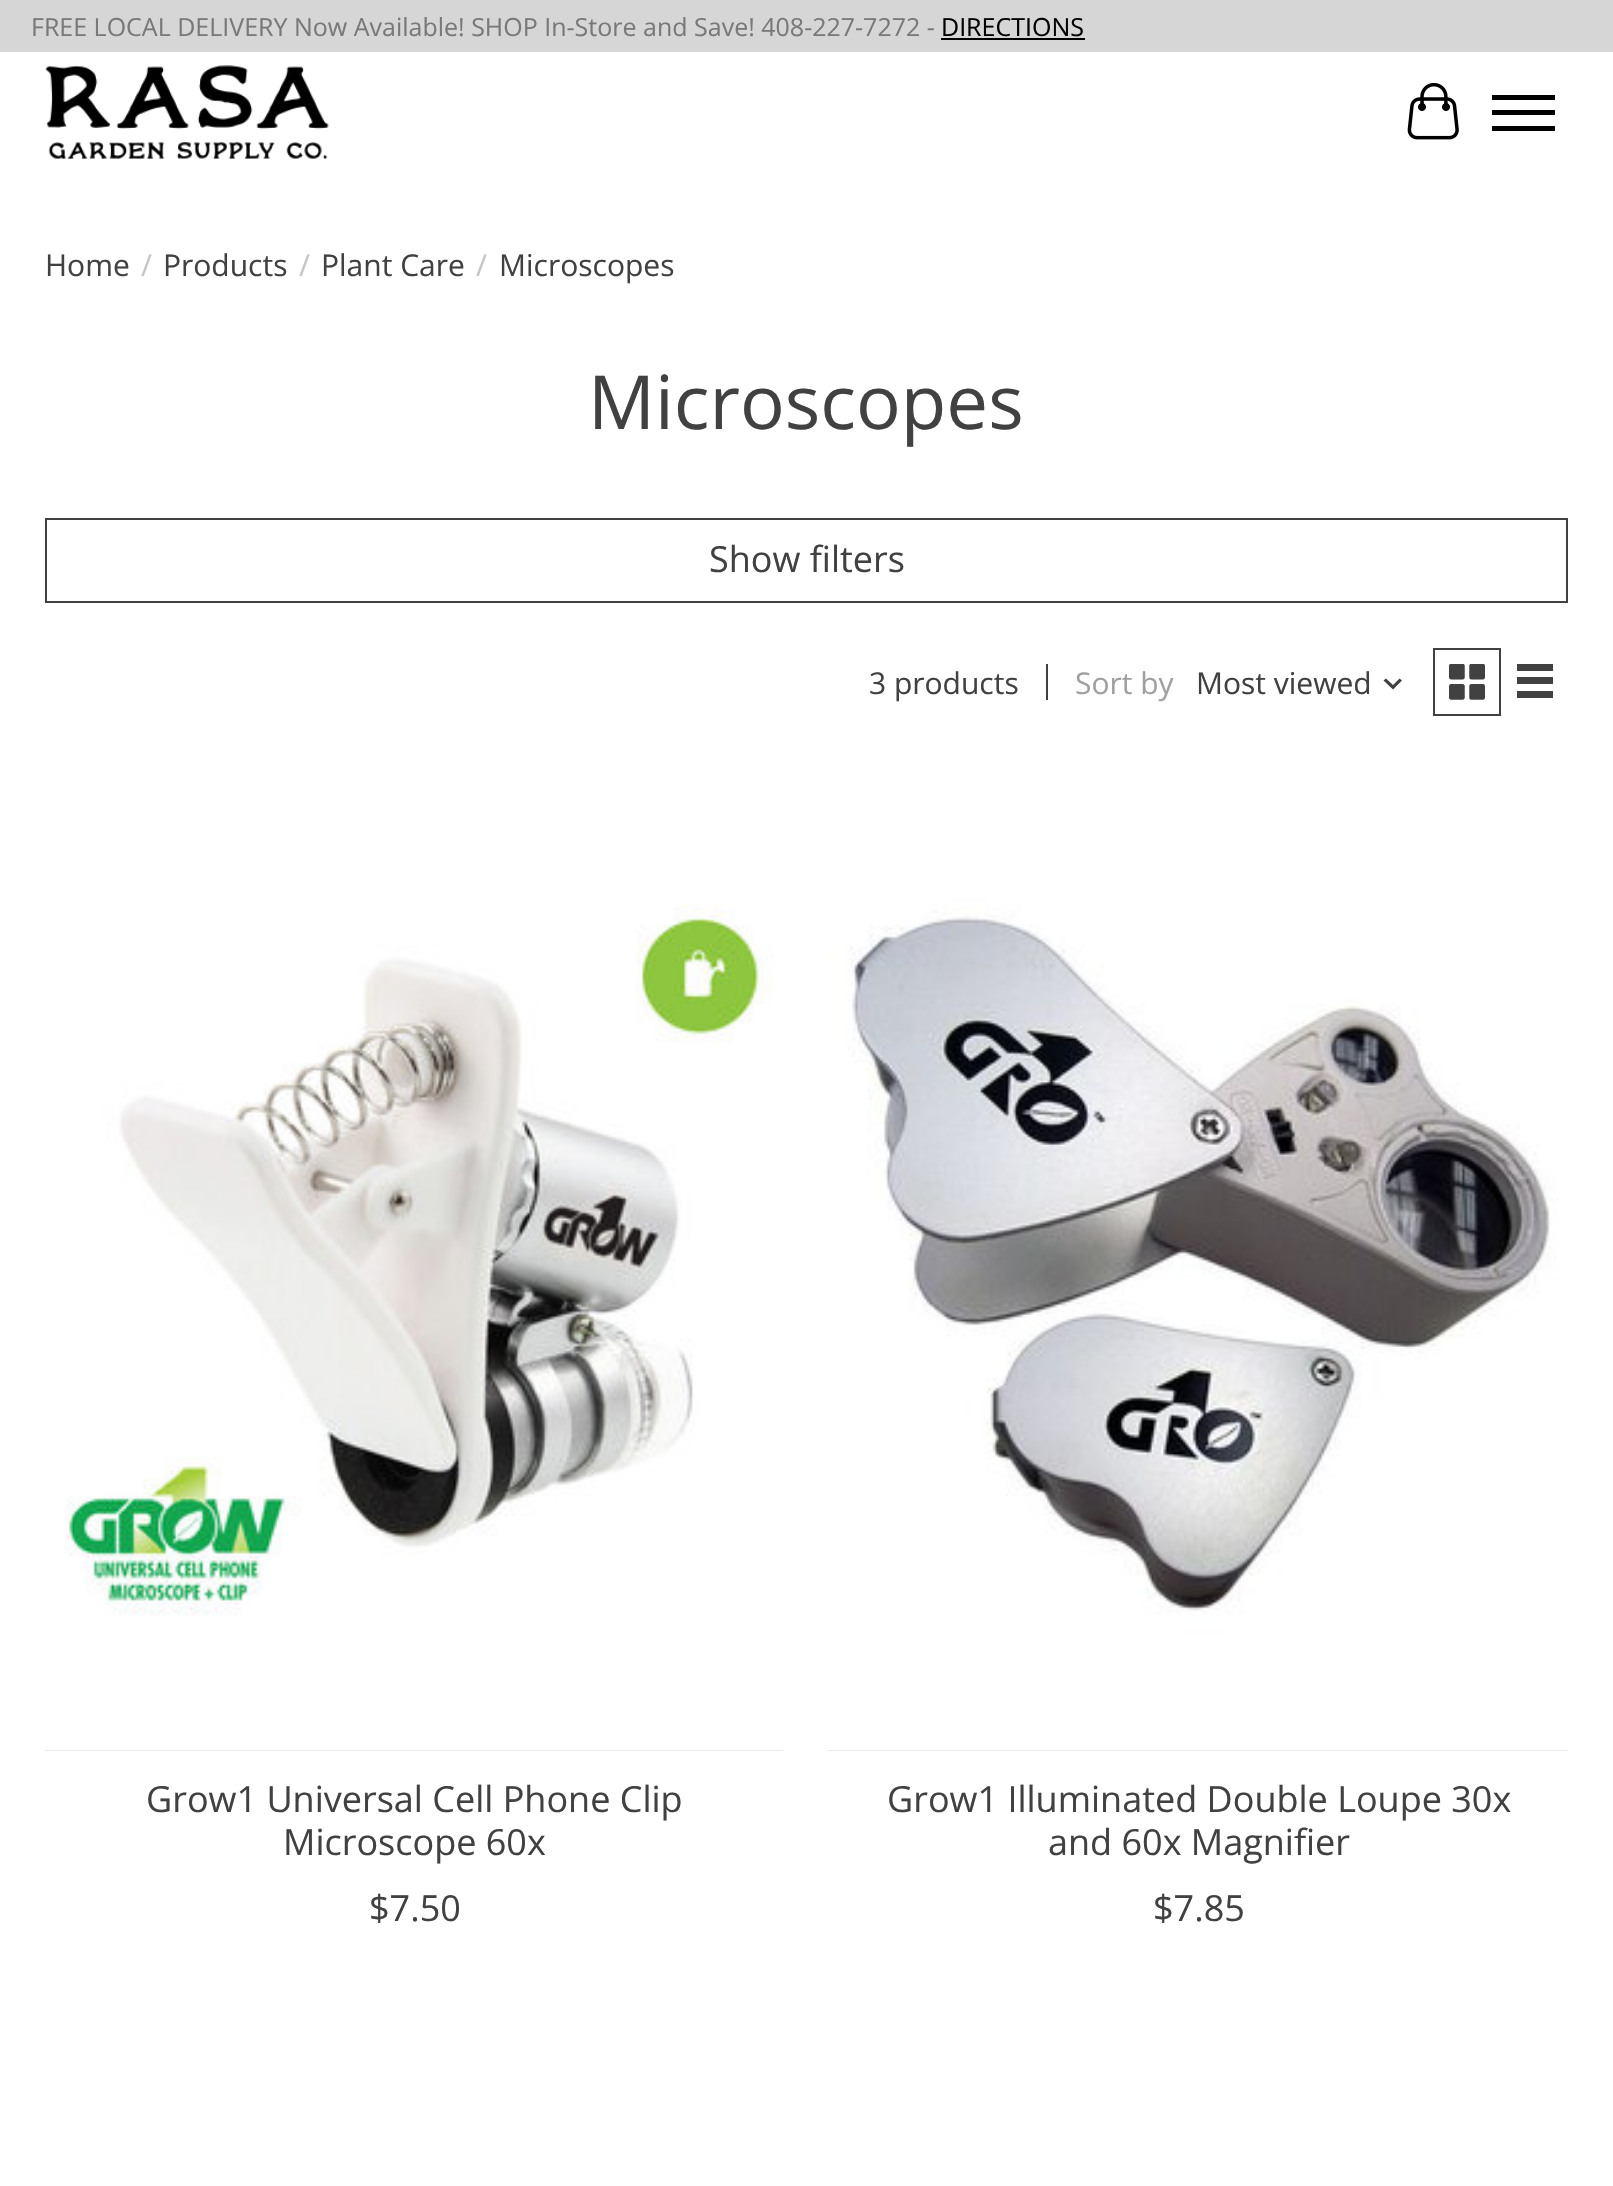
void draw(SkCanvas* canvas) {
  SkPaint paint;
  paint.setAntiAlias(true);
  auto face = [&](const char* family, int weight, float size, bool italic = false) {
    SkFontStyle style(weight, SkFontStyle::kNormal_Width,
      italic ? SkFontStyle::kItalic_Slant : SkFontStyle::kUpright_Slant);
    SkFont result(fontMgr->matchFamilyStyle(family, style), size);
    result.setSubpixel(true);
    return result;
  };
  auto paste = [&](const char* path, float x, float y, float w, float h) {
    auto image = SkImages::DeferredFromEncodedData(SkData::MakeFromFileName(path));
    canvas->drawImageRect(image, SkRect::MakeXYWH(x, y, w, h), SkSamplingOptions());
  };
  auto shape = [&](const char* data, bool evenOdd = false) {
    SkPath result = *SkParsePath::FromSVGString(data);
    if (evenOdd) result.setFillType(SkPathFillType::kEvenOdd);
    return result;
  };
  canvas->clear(0xffffffff);
  paint.setColor(0xffd6d6d6);
  canvas->drawRect(SkRect::MakeXYWH(0, 0, 1613, 52), paint);
  paint.setColor(0xff000000);
  canvas->drawRect(SkRect::MakeXYWH(941, 38, 144, 2), paint);
  paste("img/1.png", 45, 65, 284, 94);
  paste("img/2.png", 1407, 83, 52, 57);
  {
    const struct { float x, y, w, h; SkColor color; } items[] = {
      {1492, 110, 63, 5, 0xff000000},
      {1492, 95, 63, 5, 0xff000000},
      {1492, 126, 63, 5, 0xff000000},
    };
    for (auto [x, y, w, h, color] : items) {
      paint.setColor(color);
      canvas->drawRect(SkRect::MakeXYWH(x, y, w, h), paint);
    }
  }
  paint.setStroke(true);
  paint.setStrokeWidth(2);
  paint.setColor(0xff414141);
  canvas->drawRect(SkRect::MakeXYWH(46, 519, 1521, 83), paint);
  paint.setStroke(false);
  canvas->drawRect(SkRect::MakeXYWH(1046, 664, 2, 36), paint);
  canvas->drawPath(shape("M1393 689.5L1383.5 680.5L1386 678.5L1393 685L1399.5 678.5L1402 680.5Z"), paint);
  paint.setStroke(true);
  canvas->drawRect(SkRect::MakeXYWH(1434, 649, 66, 66), paint);
  paste("img/3.png", 1449, 664, 36, 36);
  paint.setStroke(false);
  {
    const struct { float x, y, w, h; SkColor color; } items[] = {
      {1517, 664, 36, 7, 0xff414141},
      {1517, 677, 36, 7, 0xff414141},
      {1517, 691, 36, 7, 0xff414141},
      {45, 1750, 738, 1, 0xffe3e3e3},
    };
    for (auto [x, y, w, h, color] : items) {
      paint.setColor(color);
      canvas->drawRect(SkRect::MakeXYWH(x, y, w, h), paint);
    }
  }
  paste("img/4.png", 45, 770, 738, 981);
  canvas->drawRect(SkRect::MakeXYWH(828, 1750, 740, 1), paint);
  paste("img/5.png", 828, 770, 740, 981);
  auto f0 = face("Open Sans", 400, 25);
  paint.setColor(0xff797979);
  canvas->drawString("FREE LOCAL DELIVERY Now Available! SHOP In-Store and Save! 408-227-7272 -", 31, 36, f0, paint);
  paint.setColor(0xff000000);
  canvas->drawString("DIRECTIONS", 941, 36, f0, paint);
  auto f1 = face("Open Sans", 400, 30);
  paint.setColor(0xff414141);
  canvas->drawString("Home", 45, 276, f1, paint);
  paint.setColor(0xffc6c6c6);
  canvas->drawString("/", 141, 276, f1, paint);
  paint.setColor(0xff414141);
  canvas->drawString("Products", 163, 276, f1, paint);
  paint.setColor(0xffc6c6c6);
  canvas->drawString("/", 299, 276, f1, paint);
  paint.setColor(0xff414141);
  canvas->drawString("Plant Care", 321, 276, f1, paint);
  paint.setColor(0xffc6c6c6);
  canvas->drawString("/", 476, 276, f1, paint);
  paint.setColor(0xff414141);
  canvas->drawString("Microscopes", 499, 276, f1, paint);
  auto f2 = face("Open Sans", 400, 74.5f);
  canvas->drawString("Microscopes", 588, 429, f2, paint);
  auto f3 = face("Open Sans", 400, 36);
  canvas->drawString("Show filters", 709, 572, f3, paint);
  canvas->drawString("3 products", 869, 694, f1, paint);
  paint.setColor(0xffa0a0a0);
  canvas->drawString("Sort by", 1075, 694, f1, paint);
  paint.setColor(0xff414141);
  canvas->drawString("Most viewed", 1196, 694, f1, paint);
  {
    const struct { const char* s; float x, y; } items[] = {
      {"Grow1 Universal Cell Phone Clip", 146, 1812},
      {"Microscope 60x", 283, 1855},
      {"$7.50", 369, 1921},
      {"Grow1 Illuminated Double Loupe 30x", 887, 1812},
      {"and 60x Magnifier", 1048, 1855},
      {"$7.85", 1153, 1921},
    };
    for (auto [s, x, y] : items) {
      canvas->drawString(s, x, y, f3, paint);
    }
  }
}
